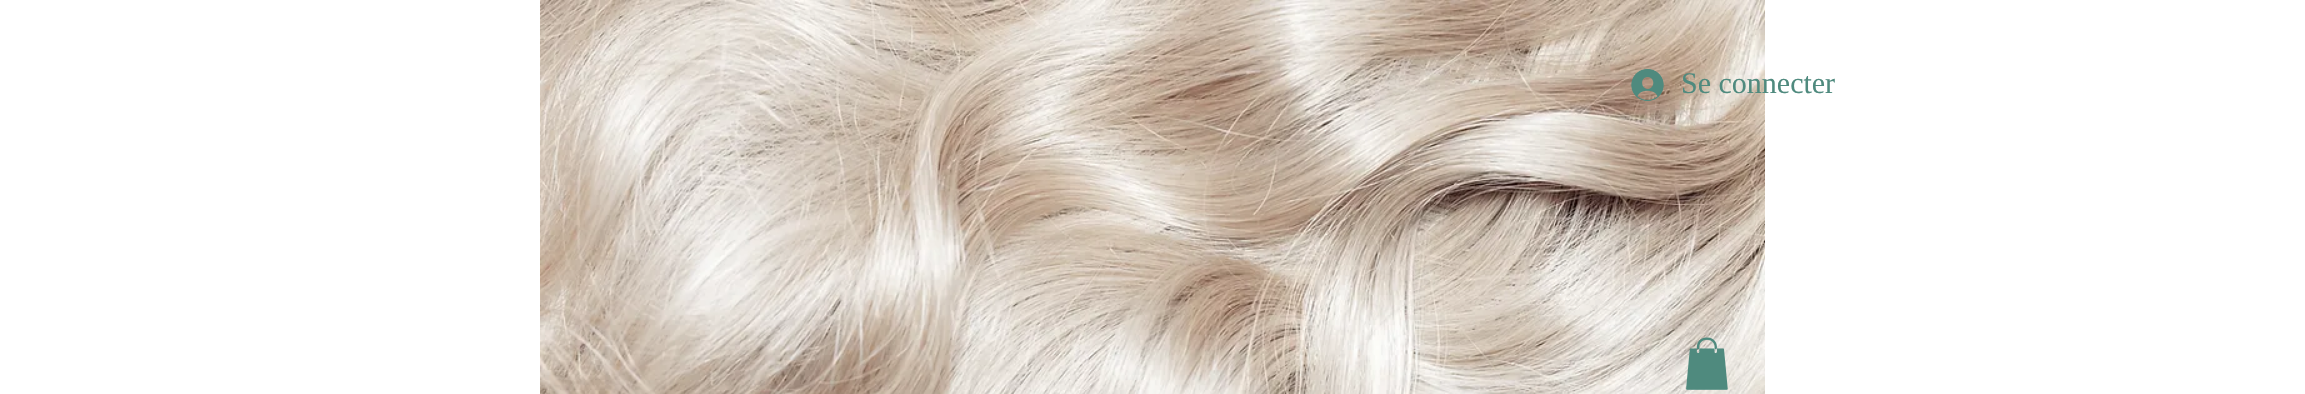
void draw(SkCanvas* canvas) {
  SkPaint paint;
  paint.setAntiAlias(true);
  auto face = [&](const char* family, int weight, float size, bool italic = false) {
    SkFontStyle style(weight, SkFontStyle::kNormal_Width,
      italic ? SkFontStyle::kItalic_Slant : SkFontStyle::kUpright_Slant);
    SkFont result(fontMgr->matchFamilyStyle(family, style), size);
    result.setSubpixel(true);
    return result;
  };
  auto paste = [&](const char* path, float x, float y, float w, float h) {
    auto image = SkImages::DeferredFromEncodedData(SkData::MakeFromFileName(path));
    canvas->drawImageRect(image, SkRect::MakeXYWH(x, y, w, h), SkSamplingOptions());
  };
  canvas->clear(0xffffffff);
  paste("img/1.png", 540, 0, 1225, 394);
  paste("img/2.png", 1631, 69, 33, 32);
  paste("img/3.png", 1686, 337, 42, 53);
  auto f0 = face("Liberation Serif", 400, 30);
  paint.setColor(0xff4f8a7e);
  canvas->drawString("Se connecter", 1681, 93, f0, paint);
}
